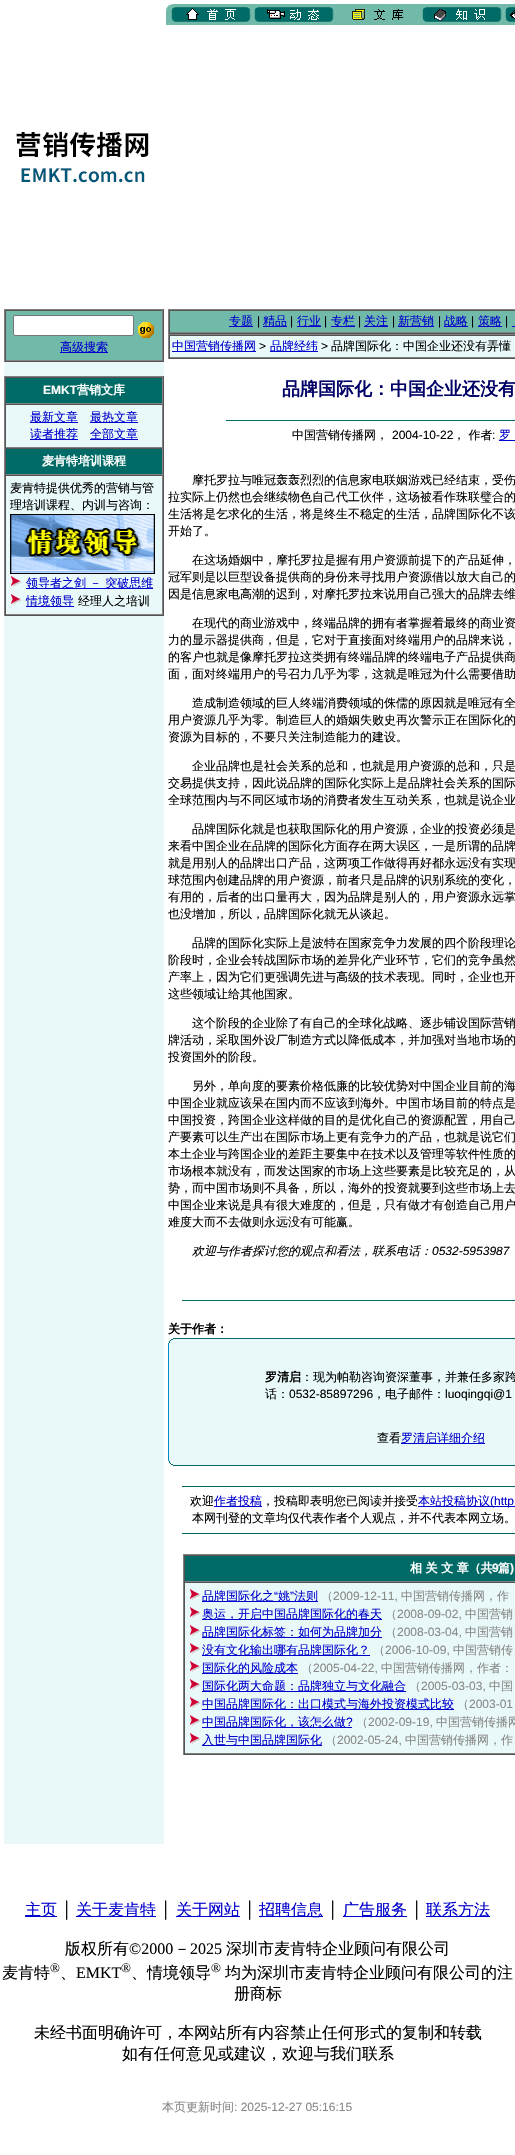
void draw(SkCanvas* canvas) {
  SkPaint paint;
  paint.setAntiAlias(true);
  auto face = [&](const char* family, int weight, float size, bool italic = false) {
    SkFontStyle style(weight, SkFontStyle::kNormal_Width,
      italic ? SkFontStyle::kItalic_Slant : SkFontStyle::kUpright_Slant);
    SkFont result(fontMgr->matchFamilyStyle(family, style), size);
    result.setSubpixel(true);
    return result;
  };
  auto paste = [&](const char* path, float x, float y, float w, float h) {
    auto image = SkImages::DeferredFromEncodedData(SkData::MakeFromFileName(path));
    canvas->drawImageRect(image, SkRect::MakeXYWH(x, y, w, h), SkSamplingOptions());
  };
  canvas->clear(0xffffffff);
  paste("img/1.png", 166, 4, 349, 21);
  paste("img/2.png", 16, 131, 133, 52);
  {
    const struct { float x, y, w, h; SkColor color; } items[] = {
      {4, 362, 160, 1482, 0xffe9f9f9},
      {4, 309, 160, 1, 0xff808080},
      {163, 309, 1, 53, 0xff555555},
      {4, 361, 160, 1, 0xff555555},
      {4, 309, 1, 53, 0xff808080},
      {6, 311, 156, 49, 0xff71baaa},
      {5, 310, 158, 1, 0xff555555},
      {162, 310, 1, 51, 0xff808080},
      {5, 360, 158, 1, 0xff808080},
      {5, 310, 1, 51, 0xff555555},
    };
    for (auto [x, y, w, h, color] : items) {
      paint.setColor(color);
      canvas->drawRect(SkRect::MakeXYWH(x, y, w, h), paint);
    }
  }
  paint.setColor(0xffffffff);
  canvas->drawRoundRect(SkRect::MakeXYWH(13.5f, 315.5f, 120, 20), 1.5f, 1.5f, paint);
  paint.setStroke(true);
  paint.setStrokeWidth(1);
  paint.setColor(0xff767676);
  canvas->drawRoundRect(SkRect::MakeXYWH(13.5f, 315.5f, 120, 20), 1.5f, 1.5f, paint);
  paste("img/3.png", 138, 322, 16, 16);
  paint.setStroke(false);
  {
    const struct { float x, y, w, h; SkColor color; } items[] = {
      {60, 352, 48, 1, 0xff0000cc},
      {4, 376, 160, 1, 0xff808080},
      {163, 376, 1, 240, 0xff555555},
      {4, 615, 160, 1, 0xff555555},
      {4, 376, 1, 240, 0xff808080},
      {6, 378, 156, 25, 0xff006b66},
      {5, 377, 158, 1, 0xff555555},
      {162, 377, 1, 27, 0xff808080},
      {5, 403, 158, 1, 0xff808080},
      {5, 377, 1, 27, 0xff555555},
      {5, 404, 158, 1, 0xff555555},
      {162, 404, 1, 44, 0xff808080},
      {5, 447, 158, 1, 0xff808080},
      {5, 404, 1, 44, 0xff555555},
      {30, 422, 48, 1, 0xff0000cc},
      {90, 422, 48, 1, 0xff0000cc},
      {30, 439, 48, 1, 0xff0000cc},
      {90, 439, 48, 1, 0xff0000cc},
      {6, 449, 156, 25, 0xff006b66},
      {5, 448, 158, 1, 0xff555555},
      {162, 448, 1, 27, 0xff808080},
      {5, 474, 158, 1, 0xff808080},
      {5, 448, 1, 27, 0xff555555},
      {5, 475, 158, 1, 0xff555555},
      {162, 475, 1, 140, 0xff808080},
      {5, 614, 158, 1, 0xff808080},
      {5, 475, 1, 140, 0xff555555},
    };
    for (auto [x, y, w, h, color] : items) {
      paint.setColor(color);
      canvas->drawRect(SkRect::MakeXYWH(x, y, w, h), paint);
    }
  }
  paste("img/4.png", 10, 514, 145, 60);
  paste("img/5.png", 11, 576, 11, 11);
  paint.setColor(0xff0000cc);
  canvas->drawRect(SkRect::MakeXYWH(26, 588, 127, 1), paint);
  paste("img/5.png", 11, 594, 11, 11);
  {
    const struct { float x, y, w, h; SkColor color; } items[] = {
      {26, 606, 48, 1, 0xff0000cc},
      {168, 309, 347, 1, 0xff808080},
      {168, 333, 347, 1, 0xff555555},
      {168, 309, 1, 25, 0xff808080},
      {170, 311, 345, 21, 0xff71baaa},
      {169, 310, 346, 1, 0xff555555},
      {169, 332, 346, 1, 0xff808080},
      {169, 310, 1, 23, 0xff555555},
      {229, 326, 24, 1, 0xff0000cc},
      {263, 326, 24, 1, 0xff0000cc},
      {297, 326, 24, 1, 0xff0000cc},
      {331, 326, 24, 1, 0xff0000cc},
      {364, 326, 24, 1, 0xff0000cc},
      {398, 326, 36, 1, 0xff0000cc},
      {444, 326, 24, 1, 0xff0000cc},
      {478, 326, 24, 1, 0xff0000cc},
      {512, 326, 3, 1, 0xff0000cc},
      {168, 334, 347, 1, 0xff808080},
      {168, 358, 347, 1, 0xff555555},
      {168, 334, 1, 25, 0xff808080},
      {170, 336, 345, 21, 0xffe9f9f9},
      {169, 335, 346, 1, 0xff555555},
      {169, 357, 346, 1, 0xff808080},
      {169, 335, 1, 23, 0xff555555},
      {172, 351, 84, 1, 0xff0000cc},
      {270, 351, 48, 1, 0xff0000cc},
      {226, 420, 289, 1, 0xff006b66},
      {499, 440, 16, 1, 0xff0000cc},
      {182, 1300, 333, 1, 0xff006b66},
      {173, 1338, 342, 1, 0xff006b66},
      {171, 1339, 344, 1, 0xffe9f9f9},
      {171, 1339, 2, 1, 0xff006b66},
      {170, 1340, 345, 1, 0xffe9f9f9},
      {170, 1340, 1, 1, 0xff006b66},
      {169, 1341, 346, 2, 0xffe9f9f9},
      {169, 1341, 1, 2, 0xff006b66},
      {169, 1343, 346, 118, 0xffe9f9f9},
      {168, 1343, 1, 118, 0xff0088cc},
      {401, 1443, 84, 1, 0xff0000cc},
      {169, 1461, 346, 2, 0xffe9f9f9},
      {169, 1461, 1, 2, 0xff006b66},
      {170, 1463, 345, 1, 0xffe9f9f9},
      {170, 1463, 1, 1, 0xff006b66},
      {171, 1464, 344, 1, 0xffe9f9f9},
      {171, 1464, 2, 1, 0xff006b66},
      {173, 1465, 342, 1, 0xff006b66},
      {182, 1486, 333, 1, 0xff006b66},
      {214, 1506, 48, 1, 0xff0000cc},
      {418, 1506, 97, 1, 0xff0000cc},
      {182, 1533, 333, 1, 0xff006b66},
      {183, 1554, 332, 1, 0xff808080},
      {183, 1754, 332, 1, 0xff555555},
      {183, 1554, 1, 201, 0xff808080},
      {185, 1556, 330, 25, 0xff006b66},
      {184, 1555, 331, 1, 0xff555555},
      {184, 1581, 331, 1, 0xff808080},
      {184, 1555, 1, 27, 0xff555555},
      {185, 1583, 330, 170, 0xffe9f9f9},
      {184, 1582, 331, 1, 0xff555555},
      {184, 1753, 331, 1, 0xff808080},
      {184, 1582, 1, 172, 0xff555555},
    };
    for (auto [x, y, w, h, color] : items) {
      paint.setColor(color);
      canvas->drawRect(SkRect::MakeXYWH(x, y, w, h), paint);
    }
  }
  paste("img/5.png", 190, 1589, 11, 11);
  paint.setColor(0xff0000cc);
  canvas->drawRect(SkRect::MakeXYWH(202, 1601, 116, 1), paint);
  paste("img/5.png", 190, 1607, 11, 11);
  canvas->drawRect(SkRect::MakeXYWH(202, 1619, 180, 1), paint);
  paste("img/5.png", 190, 1625, 11, 11);
  canvas->drawRect(SkRect::MakeXYWH(202, 1637, 180, 1), paint);
  paste("img/5.png", 190, 1643, 11, 11);
  canvas->drawRect(SkRect::MakeXYWH(202, 1655, 168, 1), paint);
  paste("img/5.png", 190, 1661, 11, 11);
  canvas->drawRect(SkRect::MakeXYWH(202, 1673, 96, 1), paint);
  paste("img/5.png", 190, 1679, 11, 11);
  canvas->drawRect(SkRect::MakeXYWH(202, 1691, 204, 1), paint);
  paste("img/5.png", 190, 1697, 11, 11);
  canvas->drawRect(SkRect::MakeXYWH(202, 1709, 252, 1), paint);
  paste("img/5.png", 190, 1715, 11, 11);
  canvas->drawRect(SkRect::MakeXYWH(202, 1727, 150, 1), paint);
  paste("img/5.png", 190, 1733, 11, 11);
  {
    const struct { float x, y, w, h; SkColor color; } items[] = {
      {202, 1745, 120, 1, 0xff0000cc},
      {25, 1916, 32, 1, 0xff0000cc},
      {76, 1916, 80, 1, 0xff0000cc},
      {176, 1916, 64, 1, 0xff0000cc},
      {259, 1916, 64, 1, 0xff0000cc},
      {343, 1916, 64, 1, 0xff0000cc},
      {426, 1916, 64, 1, 0xff0000cc},
    };
    for (auto [x, y, w, h, color] : items) {
      paint.setColor(color);
      canvas->drawRect(SkRect::MakeXYWH(x, y, w, h), paint);
    }
  }
  auto f0 = face("WenQuanYi Zen Hei", 500, 12);
  canvas->drawString("高级搜索", 60, 351, f0, paint);
  auto f1 = face("Liberation Sans", 700, 12);
  paint.setColor(0xffffffff);
  canvas->drawString("EMKT", 43, 394, f1, paint);
  auto f2 = face("WenQuanYi Zen Hei", 700, 12);
  canvas->drawString("营销文库", 77, 394, f2, paint);
  paint.setColor(0xff0000cc);
  {
    const struct { const char* s; float x, y; } items[] = {
      {"最新文章", 30, 421},
      {"最热文章", 90, 421},
      {"读者推荐", 30, 438},
      {"全部文章", 90, 438},
    };
    for (auto [s, x, y] : items) {
      canvas->drawString(s, x, y, f0, paint);
    }
  }
  paint.setColor(0xffffffff);
  canvas->drawString("麦肯特培训课程", 42, 465, f2, paint);
  paint.setColor(0xff000000);
  canvas->drawString("麦肯特提供优秀的营销与管", 10, 492, f0, paint);
  canvas->drawString("理培训课程、内训与咨询：", 10, 509, f0, paint);
  paint.setColor(0xff0000cc);
  canvas->drawString("领导者之剑 － 突破思维", 26, 587, f0, paint);
  canvas->drawString("情境领导", 26, 605, f0, paint);
  paint.setColor(0xff000000);
  canvas->drawString("经理人之培训", 78, 605, f0, paint);
  paint.setColor(0xff0000cc);
  canvas->drawString("专题", 229, 325, f0, paint);
  auto f3 = face("Liberation Sans", 400, 12);
  paint.setColor(0xff000000);
  canvas->drawString("|", 257, 325, f3, paint);
  paint.setColor(0xff0000cc);
  canvas->drawString("精品", 263, 325, f0, paint);
  paint.setColor(0xff000000);
  canvas->drawString("|", 290, 325, f3, paint);
  paint.setColor(0xff0000cc);
  canvas->drawString("行业", 297, 325, f0, paint);
  paint.setColor(0xff000000);
  canvas->drawString("|", 324, 325, f3, paint);
  paint.setColor(0xff0000cc);
  canvas->drawString("专栏", 331, 325, f0, paint);
  paint.setColor(0xff000000);
  canvas->drawString("|", 358, 325, f3, paint);
  paint.setColor(0xff0000cc);
  canvas->drawString("关注", 364, 325, f0, paint);
  paint.setColor(0xff000000);
  canvas->drawString("|", 392, 325, f3, paint);
  paint.setColor(0xff0000cc);
  canvas->drawString("新营销", 398, 325, f0, paint);
  paint.setColor(0xff000000);
  canvas->drawString("|", 438, 325, f3, paint);
  paint.setColor(0xff0000cc);
  canvas->drawString("战略", 444, 325, f0, paint);
  paint.setColor(0xff000000);
  canvas->drawString("|", 471, 325, f3, paint);
  paint.setColor(0xff0000cc);
  canvas->drawString("策略", 478, 325, f0, paint);
  paint.setColor(0xff000000);
  canvas->drawString("|", 505, 325, f3, paint);
  paint.setColor(0xff0000cc);
  canvas->drawString("中国营销传播网", 172, 350, f0, paint);
  paint.setColor(0xff000000);
  canvas->drawString(">", 259, 350, f3, paint);
  paint.setColor(0xff0000cc);
  canvas->drawString("品牌经纬", 270, 350, f0, paint);
  paint.setColor(0xff000000);
  canvas->drawString(">", 321, 350, f3, paint);
  canvas->drawString("品牌国际化：中国企业还没有弄懂", 331, 350, f0, paint);
  auto f4 = face("WenQuanYi Zen Hei", 700, 18);
  paint.setColor(0xff000066);
  canvas->drawString("品牌国际化：中国企业还没有", 282, 395, f4, paint);
  paint.setColor(0xff000000);
  canvas->drawString("中国营销传播网，", 292, 439, f0, paint);
  canvas->drawString("2004-10-22", 392, 439, f3, paint);
  canvas->drawString("， 作者", 453, 439, f0, paint);
  canvas->drawString(":", 492, 439, f3, paint);
  paint.setColor(0xff0000cc);
  canvas->drawString("罗", 499, 439, f0, paint);
  paint.setColor(0xff000000);
  {
    const struct { const char* s; float x, y; } items[] = {
      {"摩托罗拉与唯冠轰轰烈烈的信息家电联姻游戏已经结束，受伤", 192, 484},
      {"拉实际上仍然也会继续物色自己代工伙伴，这场被看作珠联璧合的", 168, 501},
      {"生活将是乞求化的生活，将是终生不稳定的生活，品牌国际化不该", 168, 518},
      {"开始了。", 168, 535},
      {"在这场婚姻中，摩托罗拉是握有用户资源前提下的产品延伸，", 192, 564},
      {"冠军则是以巨型设备提供商的身份来寻找用户资源借以放大自己的", 168, 581},
      {"因是信息家电高潮的迟到，对摩托罗拉来说用自己强大的品牌去维", 168, 598},
      {"在现代的商业游戏中，终端品牌的拥有者掌握着最终的商业资", 192, 627},
      {"力的显示器提供商，但是，它对于直接面对终端用户的品牌来说，", 168, 644},
      {"的客户也就是像摩托罗拉这类拥有终端品牌的终端电子产品提供商", 168, 661},
      {"面，面对终端用户的号召力几乎为零，这就是唯冠为什么需要借助", 168, 678},
      {"造成制造领域的巨人终端消费领域的侏儒的原因就是唯冠有全", 192, 707},
      {"用户资源几乎为零。制造巨人的婚姻失败史再次警示正在国际化的", 168, 724},
      {"资源为目标的，不要只关注制造能力的建设。", 168, 741},
      {"企业品牌也是社会关系的总和，也就是用户资源的总和，只是", 192, 770},
      {"交易提供支持，因此说品牌的国际化实际上是品牌社会关系的国际", 168, 787},
      {"全球范围内与不同区域市场的消费者发生互动关系，也就是说企业", 168, 804},
      {"品牌国际化就是也获取国际化的用户资源，企业的投资必须是", 192, 833},
      {"来看中国企业在品牌的国际化方面存在两大误区，一是所谓的品牌", 168, 850},
      {"就是用别人的品牌出口产品，这两项工作做得再好都永远没有实现", 168, 867},
      {"球范围内创建品牌的用户资源，前者只是品牌的识别系统的变化，", 168, 884},
      {"有用的，后者的出口量再大，因为品牌是别人的，用户资源永远掌", 168, 901},
      {"也没增加，所以，品牌国际化就无从谈起。", 168, 918},
      {"品牌的国际化实际上是波特在国家竞争力发展的四个阶段理论", 192, 947},
      {"阶段时，企业会转战国际市场的差异化产业环节，它们的竞争虽然", 168, 964},
      {"产率上，因为它们更强调先进与高级的技术表现。同时，企业也开", 168, 981},
      {"这些领域让给其他国家。", 168, 998},
      {"这个阶段的企业除了有自己的全球化战略、逐步铺设国际营销", 192, 1027},
      {"牌活动，采取国外设厂制造方式以降低成本，并加强对当地市场的", 168, 1044},
      {"投资国外的阶段。", 168, 1061},
      {"另外，单向度的要素价格低廉的比较优势对中国企业目前的海", 192, 1090},
      {"中国企业就应该呆在国内而不应该到海外。中国市场目前的特点是", 168, 1107},
      {"中国投资，跨国企业这样做的目的是优化自己的资源配置，用自己", 168, 1124},
      {"产要素可以生产出在国际市场上更有竞争力的产品，也就是说它们", 168, 1141},
      {"本土企业与跨国企业的差距主要集中在技术以及管理等软件性质的", 168, 1158},
      {"市场根本就没有，而发达国家的市场上这些要素是比较充足的，从", 168, 1175},
      {"势，而中国市场则不具备，所以，海外的投资就要到这些市场上去", 168, 1192},
      {"中国企业来说是具有很大难度的，但是，只有做才有创造自己用户", 168, 1209},
      {"难度大而不去做则永远没有可能赢。", 168, 1226},
    };
    for (auto [s, x, y] : items) {
      canvas->drawString(s, x, y, f0, paint);
    }
  }
  auto f5 = face("WenQuanYi Zen Hei", 500, 12, true);
  canvas->drawString("欢迎与作者探讨您的观点和看法，联系电话：", 192, 1255, f5, paint);
  auto f6 = face("Liberation Sans", 400, 12, true);
  canvas->drawString("0532-5953987", 432, 1255, f6, paint);
  canvas->drawString("关于作者：", 168, 1333, f2, paint);
  canvas->drawString("罗清启", 265, 1381, f2, paint);
  canvas->drawString("：现为帕勒咨询资深董事，并兼任多家跨", 301, 1381, f0, paint);
  canvas->drawString("话：", 265, 1398, f0, paint);
  canvas->drawString("0532-85897296", 289, 1398, f3, paint);
  canvas->drawString("，电子邮件：", 373, 1398, f0, paint);
  canvas->drawString("luoqingqi@1", 445, 1398, f3, paint);
  canvas->drawString("查看", 377, 1442, f0, paint);
  paint.setColor(0xff0000cc);
  canvas->drawString("罗清启详细介绍", 401, 1442, f0, paint);
  paint.setColor(0xff000000);
  canvas->drawString("欢迎", 190, 1505, f0, paint);
  paint.setColor(0xff0000cc);
  canvas->drawString("作者投稿", 214, 1505, f0, paint);
  paint.setColor(0xff000000);
  canvas->drawString("，投稿即表明您已阅读并接受", 262, 1505, f0, paint);
  paint.setColor(0xff0000cc);
  canvas->drawString("本站投稿协议", 418, 1505, f0, paint);
  canvas->drawString("(http", 490, 1505, f3, paint);
  paint.setColor(0xff000000);
  canvas->drawString("本网刊登的文章均仅代表作者个人观点，并不代表本网立场。", 192, 1522, f0, paint);
  paint.setColor(0xffffffff);
  canvas->drawString("相 关 文 章（共", 410, 1572, f2, paint);
  canvas->drawString("9", 492, 1572, f1, paint);
  canvas->drawString("篇", 498, 1572, f2, paint);
  canvas->drawString(")", 510, 1572, f1, paint);
  paint.setColor(0xff0000cc);
  canvas->drawString("品牌国际化之", 202, 1600, f0, paint);
  canvas->drawString("“", 274, 1600, f3, paint);
  canvas->drawString("姚", 278, 1600, f0, paint);
  canvas->drawString("”", 290, 1600, f3, paint);
  canvas->drawString("法则", 294, 1600, f0, paint);
  paint.setColor(0xff888888);
  canvas->drawString("（", 321, 1600, f0, paint);
  canvas->drawString("2009-12-11,", 333, 1600, f3, paint);
  canvas->drawString("中国营销传播网，作", 401, 1600, f0, paint);
  paint.setColor(0xff0000cc);
  canvas->drawString("奥运，开启中国品牌国际化的春天", 202, 1618, f0, paint);
  paint.setColor(0xff888888);
  canvas->drawString("（", 385, 1618, f0, paint);
  canvas->drawString("2008-09-02,", 397, 1618, f3, paint);
  canvas->drawString("中国营销", 465, 1618, f0, paint);
  paint.setColor(0xff0000cc);
  canvas->drawString("品牌国际化标签：如何为品牌加分", 202, 1636, f0, paint);
  paint.setColor(0xff888888);
  canvas->drawString("（", 385, 1636, f0, paint);
  canvas->drawString("2008-03-04,", 397, 1636, f3, paint);
  canvas->drawString("中国营销", 465, 1636, f0, paint);
  paint.setColor(0xff0000cc);
  canvas->drawString("没有文化输出哪有品牌国际化？", 202, 1654, f0, paint);
  paint.setColor(0xff888888);
  canvas->drawString("（", 373, 1654, f0, paint);
  canvas->drawString("2006-10-09,", 385, 1654, f3, paint);
  canvas->drawString("中国营销传", 453, 1654, f0, paint);
  paint.setColor(0xff0000cc);
  canvas->drawString("国际化的风险成本", 202, 1672, f0, paint);
  paint.setColor(0xff888888);
  canvas->drawString("（", 301, 1672, f0, paint);
  canvas->drawString("2005-04-22,", 313, 1672, f3, paint);
  canvas->drawString("中国营销传播网，作者：", 381, 1672, f0, paint);
  paint.setColor(0xff0000cc);
  canvas->drawString("国际化两大命题：品牌独立与文化融合", 202, 1690, f0, paint);
  paint.setColor(0xff888888);
  canvas->drawString("（", 409, 1690, f0, paint);
  canvas->drawString("2005-03-03,", 421, 1690, f3, paint);
  canvas->drawString("中国", 489, 1690, f0, paint);
  paint.setColor(0xff0000cc);
  canvas->drawString("中国品牌国际化：出口模式与海外投资模式比较", 202, 1708, f0, paint);
  paint.setColor(0xff888888);
  canvas->drawString("（", 457, 1708, f0, paint);
  canvas->drawString("2003-01", 469, 1708, f3, paint);
  paint.setColor(0xff0000cc);
  canvas->drawString("中国品牌国际化，该怎么做", 202, 1726, f0, paint);
  canvas->drawString("?", 346, 1726, f3, paint);
  paint.setColor(0xff888888);
  canvas->drawString("（", 356, 1726, f0, paint);
  canvas->drawString("2002-09-19,", 368, 1726, f3, paint);
  canvas->drawString("中国营销传播网", 436, 1726, f0, paint);
  paint.setColor(0xff0000cc);
  canvas->drawString("入世与中国品牌国际化", 202, 1744, f0, paint);
  paint.setColor(0xff888888);
  canvas->drawString("（", 325, 1744, f0, paint);
  canvas->drawString("2002-05-24,", 337, 1744, f3, paint);
  canvas->drawString("中国营销传播网，作", 405, 1744, f0, paint);
  auto f7 = face("WenQuanYi Zen Hei", 500, 16);
  paint.setColor(0xff0000cc);
  canvas->drawString("主页", 25, 1915, f7, paint);
  auto f8 = face("Liberation Serif", 400, 16);
  paint.setColor(0xff000000);
  canvas->drawString("│", 61, 1915, f8, paint);
  paint.setColor(0xff0000cc);
  canvas->drawString("关于麦肯特", 76, 1915, f7, paint);
  paint.setColor(0xff000000);
  canvas->drawString("│", 160, 1915, f8, paint);
  paint.setColor(0xff0000cc);
  canvas->drawString("关于网站", 176, 1915, f7, paint);
  paint.setColor(0xff000000);
  canvas->drawString("│", 244, 1915, f8, paint);
  paint.setColor(0xff0000cc);
  canvas->drawString("招聘信息", 259, 1915, f7, paint);
  paint.setColor(0xff000000);
  canvas->drawString("│", 327, 1915, f8, paint);
  paint.setColor(0xff0000cc);
  canvas->drawString("广告服务", 343, 1915, f7, paint);
  paint.setColor(0xff000000);
  canvas->drawString("│", 411, 1915, f8, paint);
  paint.setColor(0xff0000cc);
  canvas->drawString("联系方法", 426, 1915, f7, paint);
  paint.setColor(0xff000000);
  canvas->drawString("版权所有", 65, 1954, f7, paint);
  canvas->drawString("©2000", 129, 1954, f8, paint);
  canvas->drawString("－", 174, 1954, f7, paint);
  canvas->drawString("2025", 190, 1954, f8, paint);
  canvas->drawString("深圳市麦肯特企业顾问有限公司", 226, 1954, f7, paint);
  canvas->drawString("麦肯特", 2, 1978, f7, paint);
  auto f9 = face("Liberation Serif", 400, 13);
  canvas->drawString("®", 50, 1972, f9, paint);
  canvas->drawString("、", 60, 1978, f7, paint);
  canvas->drawString("EMKT", 76, 1978, f8, paint);
  canvas->drawString("®", 121, 1972, f9, paint);
  canvas->drawString("、情境领导", 131, 1978, f7, paint);
  canvas->drawString("®", 211, 1972, f9, paint);
  {
    const struct { const char* s; float x, y; } items[] = {
      {"均为深圳市麦肯特企业顾问有限公司的注", 225, 1978},
      {"册商标", 234, 1999},
      {"未经书面明确许可，本网站所有内容禁止任何形式的复制和转载", 34, 2038},
      {"如有任何意见或建议，欢迎与我们联系", 122, 2059},
    };
    for (auto [s, x, y] : items) {
      canvas->drawString(s, x, y, f7, paint);
    }
  }
  paint.setColor(0xff888888);
  canvas->drawString("本页更新时间", 162, 2111, f0, paint);
  canvas->drawString(": 2025-12-27 05:16:15", 234, 2111, f3, paint);
}
